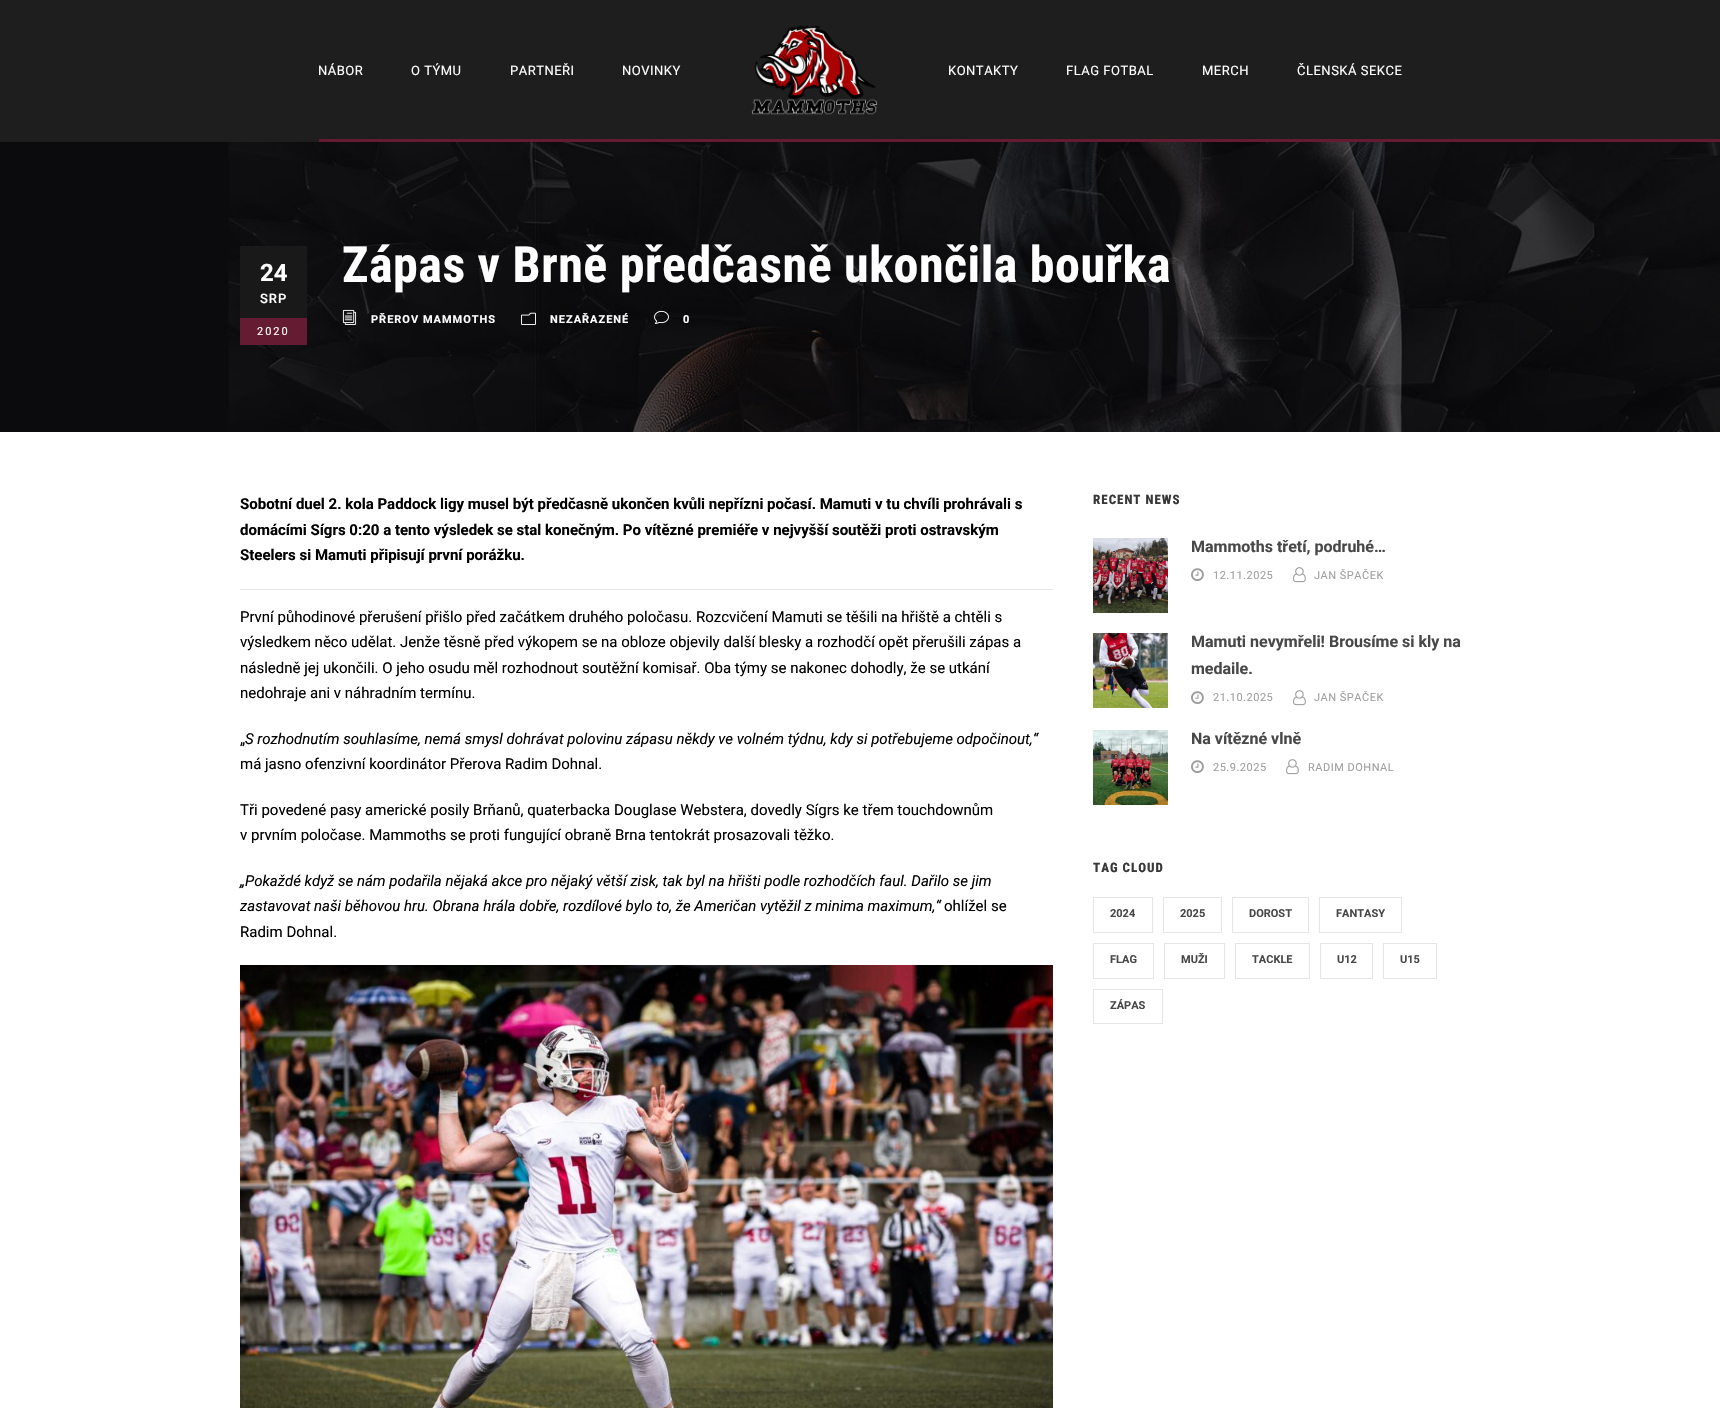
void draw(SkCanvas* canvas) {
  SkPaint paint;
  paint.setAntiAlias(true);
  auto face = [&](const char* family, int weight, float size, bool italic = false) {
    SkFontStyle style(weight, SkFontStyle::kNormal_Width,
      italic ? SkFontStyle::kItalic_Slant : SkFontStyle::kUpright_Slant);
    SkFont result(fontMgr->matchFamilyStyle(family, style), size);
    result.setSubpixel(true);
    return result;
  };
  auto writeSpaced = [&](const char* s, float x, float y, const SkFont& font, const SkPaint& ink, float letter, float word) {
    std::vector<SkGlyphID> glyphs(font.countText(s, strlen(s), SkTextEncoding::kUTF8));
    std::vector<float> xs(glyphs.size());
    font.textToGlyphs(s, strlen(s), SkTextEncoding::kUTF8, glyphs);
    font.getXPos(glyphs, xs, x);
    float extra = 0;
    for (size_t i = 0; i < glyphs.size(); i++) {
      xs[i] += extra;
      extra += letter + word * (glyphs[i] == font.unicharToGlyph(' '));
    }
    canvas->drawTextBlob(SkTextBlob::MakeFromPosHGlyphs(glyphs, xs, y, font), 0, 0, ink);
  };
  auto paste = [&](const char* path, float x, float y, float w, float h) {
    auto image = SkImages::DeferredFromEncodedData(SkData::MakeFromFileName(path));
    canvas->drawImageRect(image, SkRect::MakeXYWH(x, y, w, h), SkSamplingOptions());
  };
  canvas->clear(0xffffffff);
  paint.setColor(0xff1e1e1e);
  canvas->drawRect(SkRect::MakeXYWH(0, 0, 1720, 142), paint);
  paste("img/1.png", 751, 25, 127, 90);
  paint.setColor(0xff651c32);
  canvas->drawRect(SkRect::MakeXYWH(319, 139, 1401, 3), paint);
  paste("img/2.png", 0, 142, 1720, 290);
  paint.setColor(0xff191919);
  canvas->drawRect(SkRect::MakeXYWH(240, 246, 67, 72), paint);
  paint.setColor(0xff651c32);
  canvas->drawRect(SkRect::MakeXYWH(240, 318, 67, 27), paint);
  paste("img/3.png", 342, 309, 15, 16);
  paste("img/4.png", 521, 312, 15, 13);
  paste("img/5.png", 654, 310, 15, 14);
  paint.setColor(0xffe6e6e6);
  canvas->drawRect(SkRect::MakeXYWH(240, 589, 813, 1), paint);
  paste("img/6.png", 240, 965, 813, 443);
  paste("img/7.png", 1093, 538, 75, 75);
  paste("img/8.png", 1191, 568, 13, 13);
  paste("img/9.png", 1293, 567, 13, 16);
  paste("img/10.png", 1093, 633, 75, 75);
  paste("img/8.png", 1191, 691, 13, 13);
  paste("img/9.png", 1293, 690, 13, 16);
  paste("img/11.png", 1093, 730, 75, 75);
  paste("img/8.png", 1191, 760, 13, 13);
  paste("img/9.png", 1286, 759, 13, 16);
  paint.setStroke(true);
  paint.setStrokeWidth(1);
  canvas->drawRect(SkRect::MakeXYWH(1093.5f, 897.5f, 59, 35), paint);
  canvas->drawRect(SkRect::MakeXYWH(1163.5f, 897.5f, 58, 35), paint);
  canvas->drawRect(SkRect::MakeXYWH(1232.5f, 897.5f, 76, 35), paint);
  canvas->drawRect(SkRect::MakeXYWH(1319.5f, 897.5f, 82, 35), paint);
  canvas->drawRect(SkRect::MakeXYWH(1093.5f, 943.5f, 60, 35), paint);
  canvas->drawRect(SkRect::MakeXYWH(1164.5f, 943.5f, 60, 35), paint);
  canvas->drawRect(SkRect::MakeXYWH(1235.5f, 943.5f, 74, 35), paint);
  canvas->drawRect(SkRect::MakeXYWH(1320.5f, 943.5f, 52, 35), paint);
  canvas->drawRect(SkRect::MakeXYWH(1383.5f, 943.5f, 53, 35), paint);
  canvas->drawRect(SkRect::MakeXYWH(1093.5f, 989.5f, 69, 34), paint);
  auto f0 = face("Roboto", 400, 13);
  paint.setStroke(false);
  paint.setColor(0xffffffff);
  {
    const struct { const char* s; float x, y; } items[] = {
      {"NÁBOR", 318, 75},
      {"O TÝMU", 411, 75},
      {"PARTNEŘI", 510, 75},
      {"NOVINKY", 622, 75},
      {"KONTAKTY", 948, 75},
      {"FLAG FOTBAL", 1066, 75},
      {"MERCH", 1202, 75},
      {"ČLENSKÁ SEKCE", 1297, 75},
    };
    for (auto [s, x, y] : items) {
      writeSpaced(s, x, y, f0, paint, 0.5f, 0);
    }
  }
  auto f1 = face("Roboto", 700, 24);
  canvas->drawString("24", 260, 281, f1, paint);
  auto f2 = face("Roboto", 500, 13);
  writeSpaced("SRP", 260, 303, f2, paint, 1, 0);
  auto f3 = face("Roboto", 400, 11);
  writeSpaced("2020", 257, 335, f3, paint, 2, 0);
  auto f4 = face("Roboto Condensed", 700, 50);
  writeSpaced("Zápas v Brně předčasně ukončila bouřka", 342, 282, f4, paint, 0.5f, 0);
  auto f5 = face("Roboto", 700, 11);
  {
    const struct { const char* s; float x, y; } items[] = {
      {"PŘEROV MAMMOTHS", 371, 323},
      {"NEZAŘAZENÉ", 550, 323},
      {"0", 683, 323},
    };
    for (auto [s, x, y] : items) {
      writeSpaced(s, x, y, f5, paint, 1, 0);
    }
  }
  auto f6 = face("Roboto", 700, 15);
  paint.setColor(0xff000000);
  {
    const struct { const char* s; float x, y; } items[] = {
      {"Sobotní duel 2. kola Paddock ligy musel být předčasně ukončen kvůli nepřízni počasí. Mamuti v tu chvíli prohrávali s", 240, 509},
      {"domácími Sígrs 0:20 a tento výsledek se stal konečným. Po vítězné premiéře v nejvyšší soutěži proti ostravským", 240, 535},
      {"Steelers si Mamuti připisují první porážku.", 240, 560},
    };
    for (auto [s, x, y] : items) {
      canvas->drawString(s, x, y, f6, paint);
    }
  }
  auto f7 = face("Roboto", 400, 15);
  {
    const struct { const char* s; float x, y; } items[] = {
      {"První půhodinové přerušení přišlo před začátkem druhého poločasu. Rozcvičení Mamuti se těšili na hřiště a chtěli s", 240, 622},
      {"výsledkem něco udělat. Jenže těsně před výkopem se na obloze objevily další blesky a rozhodčí opět přerušili zápas a", 240, 647},
      {"následně jej ukončili. O jeho osudu měl rozhodnout soutěžní komisař. Oba týmy se nakonec dohodly, že se utkání", 240, 673},
      {"nedohraje ani v náhradním termínu.", 240, 698},
      {"„", 240, 744},
    };
    for (auto [s, x, y] : items) {
      canvas->drawString(s, x, y, f7, paint);
    }
  }
  auto f8 = face("Roboto", 400, 15, true);
  canvas->drawString("S rozhodnutím souhlasíme, nemá smysl dohrávat polovinu zápasu někdy ve volném týdnu, kdy si potřebujeme odpočinout,“", 245, 744, f8, paint);
  {
    const struct { const char* s; float x, y; } items[] = {
      {"má jasno ofenzivní koordinátor Přerova Radim Dohnal.", 240, 769},
      {"Tři povedené pasy americké posily Brňanů, quaterbacka Douglase Webstera, dovedly Sígrs ke třem touchdownům", 240, 815},
      {"v prvním poločase. Mammoths se proti fungující obraně Brna tentokrát prosazovali těžko.", 240, 840},
    };
    for (auto [s, x, y] : items) {
      canvas->drawString(s, x, y, f7, paint);
    }
  }
  canvas->drawString("„Pokaždé když se nám podařila nějaká akce pro nějaký větší zisk, tak byl na hřišti podle rozhodčích faul. Dařilo se jim", 240, 886, f8, paint);
  canvas->drawString("zastavovat naši běhovou hru. Obrana hrála dobře, rozdílové bylo to, že Američan vytěžil z minima maximum,“", 240, 911, f8, paint);
  canvas->drawString("ohlížel se", 944, 911, f7, paint);
  canvas->drawString("Radim Dohnal.", 240, 937, f7, paint);
  auto f9 = face("Roboto Condensed", 800, 13);
  paint.setColor(0xff383838);
  writeSpaced("RECENT NEWS", 1093, 504, f9, paint, 1, 0);
  auto f10 = face("Roboto", 700, 16);
  paint.setColor(0xff484848);
  canvas->drawString("Mammoths třetí, podruhé…", 1191, 552, f10, paint);
  paint.setColor(0xffa0a0a0);
  writeSpaced("12.11.2025", 1213, 579, f3, paint, 0.5f, 0);
  writeSpaced("JAN ŠPAČEK", 1314, 579, f3, paint, 0.5f, 0);
  paint.setColor(0xff484848);
  canvas->drawString("Mamuti nevymřeli! Brousíme si kly na", 1191, 647, f10, paint);
  canvas->drawString("medaile.", 1191, 674, f10, paint);
  paint.setColor(0xffa0a0a0);
  writeSpaced("21.10.2025", 1213, 701, f3, paint, 0.5f, 0);
  writeSpaced("JAN ŠPAČEK", 1314, 701, f3, paint, 0.5f, 0);
  paint.setColor(0xff484848);
  canvas->drawString("Na vítězné vlně", 1191, 744, f10, paint);
  paint.setColor(0xffa0a0a0);
  writeSpaced("25.9.2025", 1213, 771, f3, paint, 0.5f, 0);
  writeSpaced("RADIM DOHNAL", 1308, 771, f3, paint, 0.5f, 0);
  paint.setColor(0xff383838);
  writeSpaced("TAG CLOUD", 1093, 872, f9, paint, 1, 0);
  paint.setColor(0xff484848);
  {
    const struct { const char* s; float x, y; } items[] = {
      {"2024", 1110, 917},
      {"2025", 1180, 917},
      {"DOROST", 1249, 917},
      {"FANTASY", 1336, 917},
      {"FLAG", 1110, 963},
      {"MUŽI", 1181, 963},
      {"TACKLE", 1252, 963},
      {"U12", 1337, 963},
      {"U15", 1400, 963},
      {"ZÁPAS", 1110, 1009},
    };
    for (auto [s, x, y] : items) {
      canvas->drawString(s, x, y, f5, paint);
    }
  }
}
